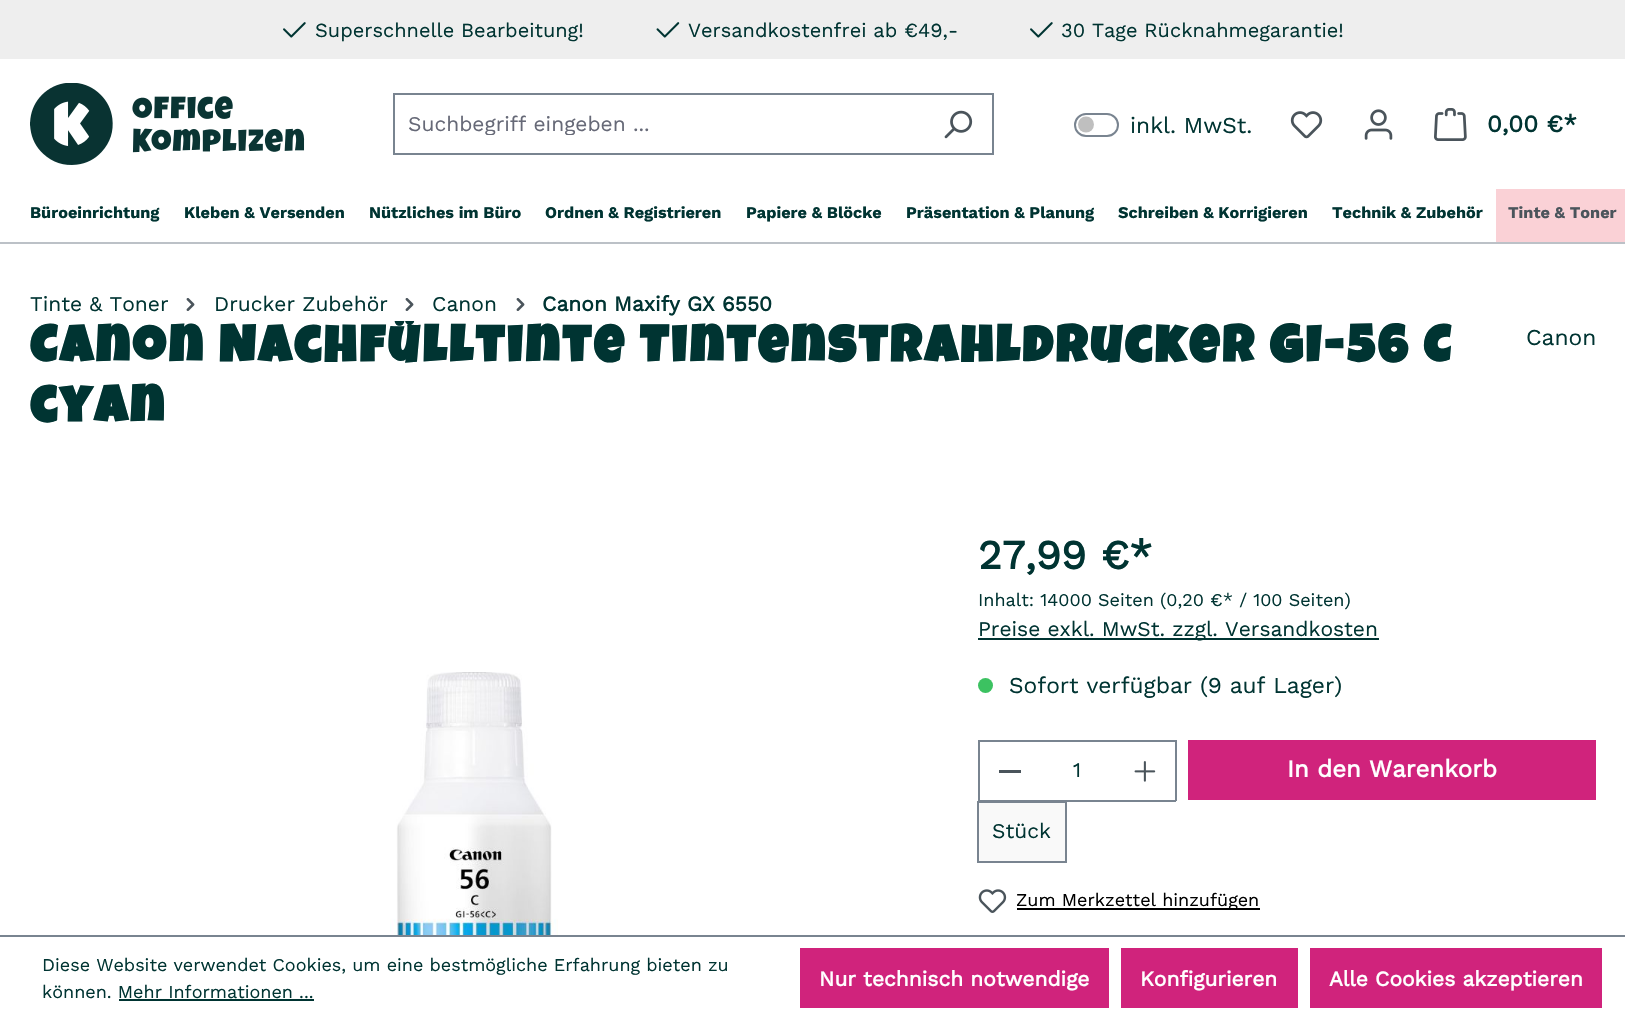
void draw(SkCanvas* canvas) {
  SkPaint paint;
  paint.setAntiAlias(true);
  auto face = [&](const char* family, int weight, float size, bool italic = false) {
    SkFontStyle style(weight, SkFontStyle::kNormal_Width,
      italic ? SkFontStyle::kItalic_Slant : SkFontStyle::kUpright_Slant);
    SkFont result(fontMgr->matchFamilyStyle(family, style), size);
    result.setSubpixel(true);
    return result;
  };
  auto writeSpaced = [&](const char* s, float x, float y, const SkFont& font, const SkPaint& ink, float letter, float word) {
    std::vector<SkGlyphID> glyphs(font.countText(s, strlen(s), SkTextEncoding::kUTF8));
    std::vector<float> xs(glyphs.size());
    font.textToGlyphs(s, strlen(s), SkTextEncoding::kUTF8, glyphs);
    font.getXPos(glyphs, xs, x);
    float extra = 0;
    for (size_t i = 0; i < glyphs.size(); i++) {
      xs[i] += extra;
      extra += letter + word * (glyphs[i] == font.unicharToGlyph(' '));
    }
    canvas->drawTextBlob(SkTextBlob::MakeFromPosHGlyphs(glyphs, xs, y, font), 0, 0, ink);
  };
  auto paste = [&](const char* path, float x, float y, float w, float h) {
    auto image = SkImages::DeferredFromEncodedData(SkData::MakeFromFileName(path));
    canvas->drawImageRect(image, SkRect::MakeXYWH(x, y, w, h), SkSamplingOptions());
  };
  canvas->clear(0xffffffff);
  paint.setColor(0xffeeeeee);
  canvas->drawRect(SkRect::MakeXYWH(0, 0, 1625, 59), paint);
  paste("img/1.png", 283, 22, 23, 16);
  paste("img/2.png", 656, 22, 24, 16);
  paste("img/1.png", 1030, 22, 23, 16);
  paste("img/3.png", 30, 83, 275, 82);
  {
    const struct { float x, y, w, h; SkColor color; } items[] = {
      {393, 93, 600, 2, 0xff798490},
      {393, 153, 531, 2, 0xff798490},
      {393, 93, 2, 62, 0xff798490},
      {992, 93, 2, 62, 0xff798490},
      {923, 153, 70, 2, 0xff798490},
    };
    for (auto [x, y, w, h, color] : items) {
      paint.setColor(color);
      canvas->drawRect(SkRect::MakeXYWH(x, y, w, h), paint);
    }
  }
  paste("img/4.png", 944, 110, 29, 29);
  paint.setColor(0xffbfbfbf);
  canvas->drawCircle(1086, 124.5f, 8, paint);
  paint.setStroke(true);
  paint.setStrokeWidth(2);
  paint.setColor(0xff798490);
  canvas->drawRoundRect(SkRect::MakeXYWH(1075, 114, 43, 22), 11, 11, paint);
  paste("img/5.png", 1290, 111, 33, 28);
  paste("img/6.png", 1364, 109, 29, 31);
  paste("img/7.png", 1434, 108, 33, 33);
  paint.setStroke(false);
  paint.setColor(0xffbcc1c7);
  canvas->drawRect(SkRect::MakeXYWH(0, 242, 1625, 2), paint);
  paint.setColor(0xfffad1d6);
  canvas->drawRect(SkRect::MakeXYWH(1496, 189, 129, 53), paint);
  paste("img/8.png", 186, 298, 9, 13);
  paste("img/8.png", 405, 298, 9, 13);
  paste("img/8.png", 516, 298, 9, 13);
  paste("img/9.png", 390, 672, 168, 263);
  paint.setColor(0xff003432);
  canvas->drawRect(SkRect::MakeXYWH(978, 638, 401, 2), paint);
  paint.setColor(0xff3cc261);
  canvas->drawCircle(985.5f, 685.5f, 7.5f, paint);
  paint.setColor(0xfff9f9f9);
  canvas->drawRect(SkRect::MakeXYWH(978, 802, 88, 60), paint);
  paint.setStroke(true);
  paint.setColor(0xff798490);
  canvas->drawRect(SkRect::MakeXYWH(978, 802, 88, 60), paint);
  paint.setStroke(false);
  {
    const struct { float x, y, w, h; SkColor color; } items[] = {
      {1040, 800, 76, 2, 0xff798490},
      {978, 800, 63, 1, 0xff798490},
      {978, 740, 198, 2, 0xff798490},
      {978, 740, 2, 61, 0xff798490},
      {999, 770, 22, 3, 0xff4a545b},
      {1175, 740, 2, 61, 0xff798490},
      {1115, 800, 61, 2, 0xff798490},
    };
    for (auto [x, y, w, h, color] : items) {
      paint.setColor(color);
      canvas->drawRect(SkRect::MakeXYWH(x, y, w, h), paint);
    }
  }
  paste("img/10.png", 1134, 761, 22, 21);
  paint.setColor(0xffd0237c);
  canvas->drawRect(SkRect::MakeXYWH(1188, 740, 408, 60), paint);
  paste("img/11.png", 978, 889, 29, 24);
  {
    const struct { float x, y, w, h; SkColor color; } items[] = {
      {1017, 908, 243, 2, 0xff000000},
      {0, 935, 1625, 2, 0xff798490},
      {119, 999, 195, 2, 0xff003432},
      {800, 948, 309, 60, 0xffd0237c},
      {1121, 948, 177, 60, 0xffd0237c},
      {1310, 948, 292, 60, 0xffd0237c},
    };
    for (auto [x, y, w, h, color] : items) {
      paint.setColor(color);
      canvas->drawRect(SkRect::MakeXYWH(x, y, w, h), paint);
    }
  }
  auto f0 = face("Work Sans", 400, 20);
  paint.setColor(0xff003432);
  {
    const struct { const char* s; float x, y; } items[] = {
      {"Superschnelle Bearbeitung!", 315, 37},
      {"Versandkostenfrei ab €49,-", 688, 37},
      {"30 Tage Rücknahmegarantie!", 1061, 37},
    };
    for (auto [s, x, y] : items) {
      canvas->drawString(s, x, y, f0, paint);
    }
  }
  canvas->save();
  canvas->clipRect(SkRect::MakeXYWH(408, 111, 503, 24));
  auto f1 = face("Work Sans", 400, 21);
  paint.setColor(0xff666977);
  canvas->drawString("Suchbegriff eingeben ...", 408, 131, f1, paint);
  canvas->restore();
  auto f2 = face("Work Sans", 400, 22.75f);
  paint.setColor(0xff003432);
  canvas->drawString("inkl. MwSt.", 1130, 133, f2, paint);
  auto f3 = face("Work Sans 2", 700, 24);
  canvas->drawString("0,00 €*", 1487, 132, f3, paint);
  auto f4 = face("Work Sans", 700, 16.25f);
  {
    const struct { const char* s; float x, y; } items[] = {
      {"Büroeinrichtung", 30, 218},
      {"Kleben & Versenden", 184, 218},
      {"Nützliches im Büro", 369, 218},
      {"Ordnen & Registrieren", 545, 218},
      {"Papiere & Blöcke", 746, 218},
      {"Präsentation & Planung", 906, 218},
      {"Schreiben & Korrigieren", 1118, 218},
      {"Technik & Zubehör", 1332, 218},
    };
    for (auto [s, x, y] : items) {
      canvas->drawString(s, x, y, f4, paint);
    }
  }
  paint.setColor(0xff4a545b);
  canvas->drawString("Tinte & Toner", 1508, 218, f4, paint);
  paint.setColor(0xff003432);
  {
    const struct { const char* s; float x, y; } items[] = {
      {"Tinte & Toner", 30, 311},
      {"Drucker Zubehör", 214, 311},
      {"Canon", 432, 311},
    };
    for (auto [s, x, y] : items) {
      canvas->drawString(s, x, y, f1, paint);
    }
  }
  auto f5 = face("Work Sans 2", 700, 21);
  canvas->drawString("Canon Maxify GX 6550", 542, 311, f5, paint);
  canvas->save();
  canvas->clipRect(SkRect::MakeXYWH(30, 321, 1566, 174));
  auto f6 = face("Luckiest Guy", 700, 51.9f);
  writeSpaced("Canon Nachfülltinte Tintenstrahldrucker GI-56 C", 30, 362, f6, paint, 3.1f, 0);
  canvas->restore();
  writeSpaced("cyan", 30, 422, f6, paint, 3.1f, 0);
  canvas->drawString("Canon", 1526, 345, f2, paint);
  auto f7 = face("Work Sans 2", 700, 41);
  canvas->drawString("27,99 €*", 978, 569, f7, paint);
  auto f8 = face("Work Sans", 400, 18);
  canvas->drawString("Inhalt: 14000 Seiten (0,20 €* / 100 Seiten)", 978, 606, f8, paint);
  canvas->drawString("Preise exkl. MwSt. zzgl. Versandkosten", 978, 636, f1, paint);
  canvas->drawString("Sofort verfügbar (9 auf Lager)", 1009, 693, f2, paint);
  canvas->drawString("1", 1073, 777, f1, paint);
  canvas->drawString("Stück", 992, 838, f1, paint);
  paint.setColor(0xffffffff);
  canvas->drawString("In den Warenkorb", 1287, 777, f3, paint);
  paint.setColor(0xff000000);
  canvas->drawString("Zum Merkzettel hinzufügen", 1016, 906, f8, paint);
  paint.setColor(0xff003432);
  canvas->drawString("Diese Website verwendet Cookies, um eine bestmögliche Erfahrung bieten zu", 42, 971, f8, paint);
  canvas->drawString("können. Mehr Informationen ...", 42, 998, f8, paint);
  paint.setColor(0xffffffff);
  {
    const struct { const char* s; float x, y; } items[] = {
      {"Nur technisch notwendige", 819, 986},
      {"Konfigurieren", 1140, 986},
      {"Alle Cookies akzeptieren", 1329, 986},
    };
    for (auto [s, x, y] : items) {
      canvas->drawString(s, x, y, f5, paint);
    }
  }
}
